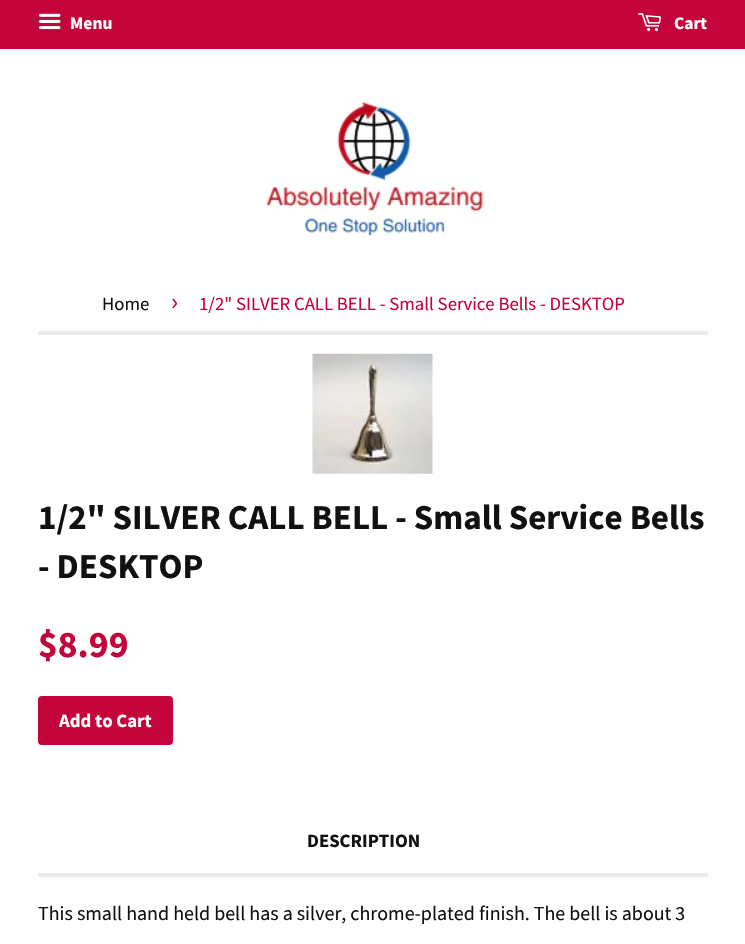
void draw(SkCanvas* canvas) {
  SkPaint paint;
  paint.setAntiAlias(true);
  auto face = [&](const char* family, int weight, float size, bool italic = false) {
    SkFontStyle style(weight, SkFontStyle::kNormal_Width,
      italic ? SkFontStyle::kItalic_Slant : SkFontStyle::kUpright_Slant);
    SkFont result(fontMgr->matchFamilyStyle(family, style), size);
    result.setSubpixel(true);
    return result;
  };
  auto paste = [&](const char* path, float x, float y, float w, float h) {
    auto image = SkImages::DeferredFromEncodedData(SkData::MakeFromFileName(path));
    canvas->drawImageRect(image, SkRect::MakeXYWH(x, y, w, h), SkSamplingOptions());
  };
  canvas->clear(0xffffffff);
  paint.setColor(0xffc3053b);
  canvas->drawRect(SkRect::MakeXYWH(0, 0, 745, 49), paint);
  paste("img/1.png", 39, 13, 22, 17);
  paste("img/2.png", 638, 13, 23, 19);
  paste("img/3.png", 265, 99, 220, 139);
  paint.setColor(0xffeaeaea);
  canvas->drawRect(SkRect::MakeXYWH(38, 331, 670, 4), paint);
  paste("img/4.png", 312, 353, 121, 121);
  paint.setColor(0xffc3053b);
  canvas->drawRoundRect(SkRect::MakeXYWH(38, 696, 135, 49), 4, 4, paint);
  paint.setColor(0xffeaeaea);
  canvas->drawRect(SkRect::MakeXYWH(38, 873, 670, 4), paint);
  auto f0 = face("Source Sans Pro", 700, 17.5f);
  paint.setColor(0xffffffff);
  canvas->drawString("Menu", 70, 29, f0, paint);
  canvas->drawString("Cart", 674, 29, f0, paint);
  auto f1 = face("Source Sans Pro", 400, 18.75f);
  paint.setColor(0xff111111);
  canvas->drawString("Home", 102, 310, f1, paint);
  auto f2 = face("Source Sans Pro", 400, 26);
  paint.setColor(0xffc3053b);
  canvas->drawString("›", 171, 310, f2, paint);
  canvas->drawString("1/2\" SILVER CALL BELL - Small Service Bells - DESKTOP", 199, 310, f1, paint);
  auto f3 = face("Source Sans Pro", 700, 35);
  paint.setColor(0xff111111);
  canvas->drawString("1/2\" SILVER CALL BELL - Small Service Bells", 38, 529, f3, paint);
  canvas->drawString("- DESKTOP", 38, 578, f3, paint);
  auto f4 = face("Source Sans Pro", 700, 37.5f);
  paint.setColor(0xffc3053b);
  canvas->drawString("$8.99", 38, 657, f4, paint);
  auto f5 = face("Source Sans Pro", 700, 18.75f);
  paint.setColor(0xffffffff);
  canvas->drawString("Add to Cart", 59, 727, f5, paint);
  paint.setColor(0xff111111);
  canvas->drawString("DESCRIPTION", 307, 847, f5, paint);
  auto f6 = face("Source Sans Pro", 400, 20);
  canvas->drawString("This small hand held bell has a silver, chrome-plated finish. The bell is about 3", 38, 920, f6, paint);
}
